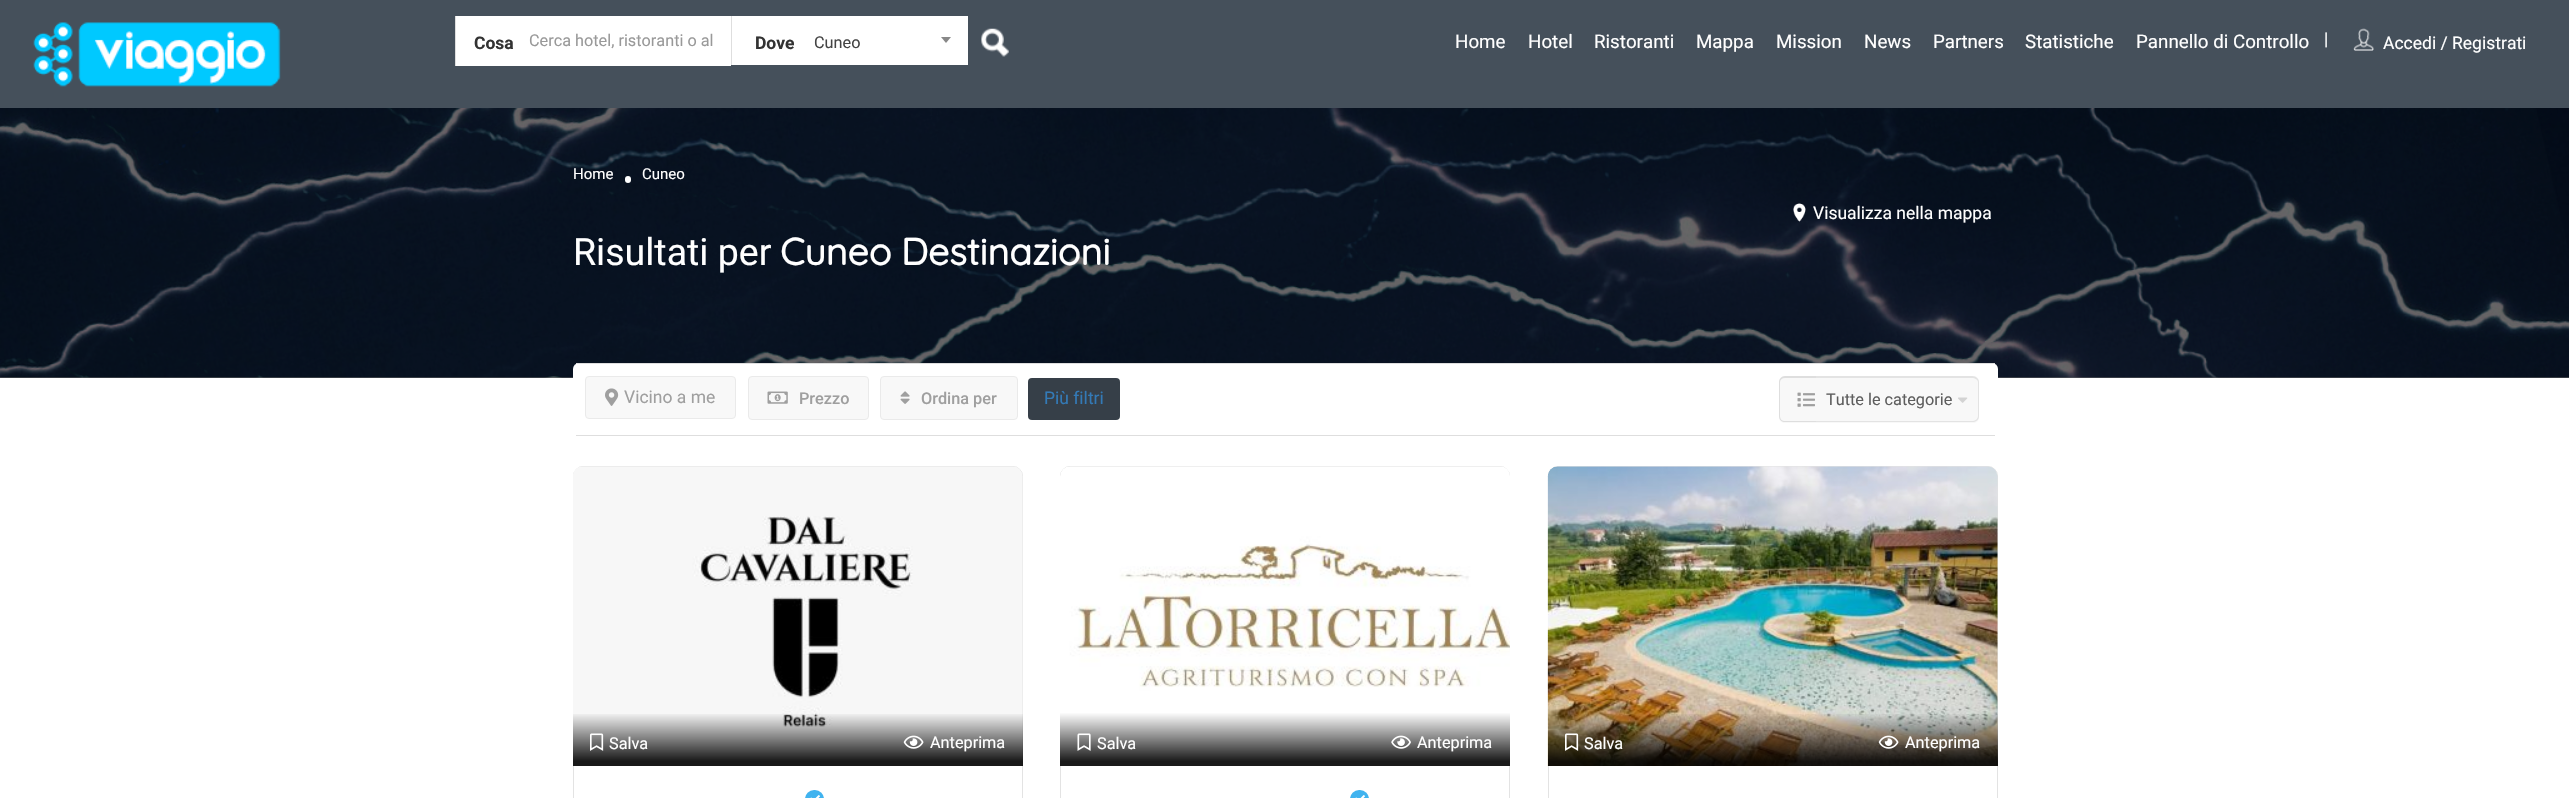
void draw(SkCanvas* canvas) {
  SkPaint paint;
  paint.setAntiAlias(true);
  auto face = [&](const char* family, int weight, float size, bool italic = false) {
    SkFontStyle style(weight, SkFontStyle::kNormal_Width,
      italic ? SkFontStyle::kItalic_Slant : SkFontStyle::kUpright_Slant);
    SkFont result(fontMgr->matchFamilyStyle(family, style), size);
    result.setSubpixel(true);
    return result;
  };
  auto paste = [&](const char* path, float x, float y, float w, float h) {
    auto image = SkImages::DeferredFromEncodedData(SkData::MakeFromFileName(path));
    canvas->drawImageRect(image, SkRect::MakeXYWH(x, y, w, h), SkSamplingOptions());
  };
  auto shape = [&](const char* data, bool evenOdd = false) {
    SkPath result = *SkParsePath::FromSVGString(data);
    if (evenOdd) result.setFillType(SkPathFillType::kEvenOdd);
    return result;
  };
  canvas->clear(0xffffffff);
  paint.setColor(0xff666666);
  canvas->drawRect(SkRect::MakeXYWH(0, 377, 2569, 1), paint);
  paint.setColor(0xff45505b);
  canvas->drawRect(SkRect::MakeXYWH(0, 0, 2569, 108), paint);
  paste("img/1.png", 33, 22, 248, 65);
  {
    const struct { float x, y, w, h; SkColor color; } items[] = {
      {456, 16, 275, 50, 0xffffffff},
      {455, 16, 1, 50, 0xffdedede},
      {732, 16, 236, 49, 0xffffffff},
      {731, 16, 1, 49, 0xffdedede},
    };
    for (auto [x, y, w, h, color] : items) {
      paint.setColor(color);
      canvas->drawRect(SkRect::MakeXYWH(x, y, w, h), paint);
    }
  }
  paint.setColor(0xff888888);
  canvas->drawPath(shape("M941 37H951L946 43Z"), paint);
  paste("img/2.png", 981, 28, 28, 29);
  paste("img/3.png", 2353, 28, 21, 23);
  paste("img/4.png", 0, 108, 2569, 270);
  paint.setColor(0xffffffff);
  canvas->drawRoundRect(SkRect::MakeXYWH(625, 176, 6, 7), 3, 3, paint);
  paste("img/5.png", 1793, 203, 13, 19);
  canvas->drawRoundRect(SkRect::MakeXYWH(573, 363, 1425, 73), 6, 6, paint);
  paint.setColor(0xffdedede);
  canvas->drawRect(SkRect::MakeXYWH(576, 363, 1419, 1), paint);
  canvas->drawRect(SkRect::MakeXYWH(576, 435, 1419, 1), paint);
  paint.setColor(0xfff8f8f8);
  canvas->drawRoundRect(SkRect::MakeXYWH(585.5f, 376.5f, 150, 42), 3.5f, 3.5f, paint);
  paint.setStroke(true);
  paint.setStrokeWidth(1);
  paint.setColor(0xffeaeaea);
  canvas->drawRoundRect(SkRect::MakeXYWH(585.5f, 376.5f, 150, 42), 3.5f, 3.5f, paint);
  paste("img/6.png", 605, 388, 14, 18);
  paint.setStroke(false);
  paint.setColor(0xfff8f8f8);
  canvas->drawRoundRect(SkRect::MakeXYWH(748.5f, 376.5f, 120, 43), 3.5f, 3.5f, paint);
  paint.setStroke(true);
  paint.setColor(0xffeaeaea);
  canvas->drawRoundRect(SkRect::MakeXYWH(748.5f, 376.5f, 120, 43), 3.5f, 3.5f, paint);
  paste("img/7.png", 767, 391, 21, 13);
  paint.setStroke(false);
  paint.setColor(0xfff8f8f8);
  canvas->drawRoundRect(SkRect::MakeXYWH(880.5f, 376.5f, 137, 43), 3.5f, 3.5f, paint);
  paint.setStroke(true);
  paint.setColor(0xffeaeaea);
  canvas->drawRoundRect(SkRect::MakeXYWH(880.5f, 376.5f, 137, 43), 3.5f, 3.5f, paint);
  paste("img/8.png", 900, 391, 10, 13);
  paint.setStroke(false);
  paint.setColor(0xff363f48);
  canvas->drawRoundRect(SkRect::MakeXYWH(1028, 378, 92, 42), 4, 4, paint);
  paint.setColor(0xfff8f8f8);
  canvas->drawPath(shape("M1785 376H1816V423H1785C1781.5 423 1779 420.5 1779 417V382C1779 378.5 1781.5 376 1785 376Z"), paint);
  paint.setColor(0xffdedede);
  canvas->drawPath(shape("M1785 376H1816V422H1785C1782 422 1779 420 1779 416V382C1779 379 1782 376 1785 376ZM1785 378H1816V421H1785C1782 421 1780 419 1780 416V382C1780 380 1782 378 1785 378Z", true), paint);
  paste("img/9.png", 1797, 392, 18, 15);
  paint.setColor(0xfff8f8f8);
  canvas->drawPath(shape("M1816 376H1973C1976.5 376 1979 378.5 1979 382V417C1979 420.5 1976.5 423 1973 423H1816Z"), paint);
  paint.setColor(0xffe3e3e3);
  canvas->drawPath(shape("M1816 376H1972C1976 376 1979 379 1979 382V416C1979 420 1976 422 1972 422H1816ZM1816 378H1972C1975 378 1978 380 1978 382V416C1978 419 1975 421 1972 421H1816Z", true), paint);
  paste("img/10.png", 1958, 397, 10, 6);
  paint.setStroke(true);
  canvas->drawRoundRect(SkRect::MakeXYWH(573.5f, 466.5f, 449, 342), 9.5f, 9.5f, paint);
  paint.setStroke(false);
  paint.setColor(0xff40b3ef);
  canvas->drawRoundRect(SkRect::MakeXYWH(805, 790, 19, 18), 9.5f, 9.5f, paint);
  paste("img/11.png", 810, 795, 10, 3);
  paste("img/12.png", 573, 466, 450, 300);
  {
    const SkColor colors[] = {0xe6000000, 0x00000000};
    const float stops[] = {0.08f, 0.94f};
    const SkPoint ends[] = {{798, 766}, {798, 709}};
    paint.setShader(SkGradientShader::MakeLinear(ends, colors, stops, 2, SkTileMode::kClamp));
    paint.setAlpha(255);
  }
  canvas->drawRect(SkRect::MakeXYWH(573, 714, 450, 52), paint);
  paste("img/13.png", 590, 733, 14, 18);
  paste("img/14.png", 903, 735, 21, 14);
  paint.setStroke(true);
  paint.setShader(nullptr);
  paint.setColor(0xffe3e3e3);
  canvas->drawRoundRect(SkRect::MakeXYWH(1060.5f, 466.5f, 449, 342), 9.5f, 9.5f, paint);
  paint.setStroke(false);
  paint.setColor(0xff40b3ef);
  canvas->drawRoundRect(SkRect::MakeXYWH(1350, 790, 19, 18), 9.5f, 9.5f, paint);
  paste("img/11.png", 1355, 795, 10, 3);
  paste("img/15.png", 1060, 466, 450, 243);
  {
    const SkColor colors[] = {0xff1a1a1a, 0xffffffff};
    const float stops[] = {0.08f, 0.94f};
    const SkPoint ends[] = {{1285, 766}, {1285, 709}};
    paint.setShader(SkGradientShader::MakeLinear(ends, colors, stops, 2, SkTileMode::kClamp));
    paint.setAlpha(255);
  }
  canvas->drawRect(SkRect::MakeXYWH(1060, 709, 450, 57), paint);
  paste("img/16.png", 1077, 733, 14, 18);
  paste("img/17.png", 1391, 735, 20, 14);
  paint.setStroke(true);
  paint.setShader(nullptr);
  paint.setColor(0xffe3e3e3);
  canvas->drawRoundRect(SkRect::MakeXYWH(1548.5f, 466.5f, 449, 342), 9.5f, 9.5f, paint);
  paste("img/18.png", 1547, 466, 451, 300);
  paint.setStroke(false);
  {
    const SkColor colors[] = {0xe6000000, 0x00000000};
    const float stops[] = {0.08f, 0.94f};
    const SkPoint ends[] = {{1773, 766}, {1773, 709}};
    paint.setShader(SkGradientShader::MakeLinear(ends, colors, stops, 2, SkTileMode::kClamp));
    paint.setAlpha(255);
  }
  canvas->drawRect(SkRect::MakeXYWH(1548, 714, 450, 52), paint);
  paste("img/19.png", 1565, 733, 14, 18);
  paste("img/20.png", 1878, 735, 21, 14);
  auto f0 = face("Roboto", 700, 17.5f);
  paint.setShader(nullptr);
  paint.setColor(0xff333333);
  canvas->drawString("Cosa", 474, 49, f0, paint);
  auto f1 = face("Roboto", 400, 16.25f);
  paint.setColor(0xff999999);
  canvas->drawString("Cerca hotel, ristoranti o al", 529, 46, f1, paint);
  paint.setColor(0xff333333);
  canvas->drawString("Dove", 755, 49, f0, paint);
  paint.setColor(0xff444444);
  canvas->drawString("Cuneo", 814, 48, f1, paint);
  auto f2 = face("Roboto", 400, 18.75f);
  paint.setColor(0xffffffff);
  {
    const struct { const char* s; float x, y; } items[] = {
      {"Home", 1455, 48},
      {"Hotel", 1528, 48},
      {"Ristoranti", 1594, 48},
      {"Mappa", 1696, 48},
      {"Mission", 1776, 48},
      {"News", 1864, 48},
      {"Partners", 1933, 48},
      {"Statistiche", 2025, 48},
      {"Pannello di Controllo", 2136, 48},
    };
    for (auto [s, x, y] : items) {
      canvas->drawString(s, x, y, f2, paint);
    }
  }
  auto f3 = face("Roboto", 400, 17.5f);
  canvas->drawString("|", 2324, 45, f3, paint);
  canvas->drawString("Accedi / Registrati", 2383, 49, f3, paint);
  auto f4 = face("Roboto", 400, 15);
  canvas->drawString("Home", 573, 179, f4, paint);
  canvas->drawString("Cuneo", 642, 179, f4, paint);
  canvas->drawString("Visualizza nella mappa", 1813, 219, f3, paint);
  auto f5 = face("Roboto", 400, 37.5f);
  canvas->drawString("Risultati per", 573, 265, f5, paint);
  auto f6 = face("Quicksand", 700, 37.5f);
  canvas->drawString("Cuneo", 780, 265, f6, paint);
  canvas->drawString("Destinazioni", 901, 265, f6, paint);
  paint.setColor(0xff9f9f9f);
  canvas->drawString("Vicino a me", 624, 403, f3, paint);
  auto f7 = face("Roboto", 500, 16.25f);
  canvas->drawString("Prezzo", 799, 404, f7, paint);
  canvas->drawString("Ordina per", 921, 404, f7, paint);
  paint.setColor(0xff337ab7);
  canvas->drawString("Più filtri", 1044, 404, f3, paint);
  paint.setColor(0xff5e5e5e);
  canvas->drawString("Tutte le categorie", 1826, 405, f1, paint);
  paint.setColor(0xffffffff);
  {
    const struct { const char* s; float x, y; } items[] = {
      {"Salva", 609, 749},
      {"Anteprima", 930, 748},
      {"Salva", 1097, 749},
      {"Anteprima", 1417, 748},
      {"Salva", 1584, 749},
      {"Anteprima", 1905, 748},
    };
    for (auto [s, x, y] : items) {
      canvas->drawString(s, x, y, f1, paint);
    }
  }
}
